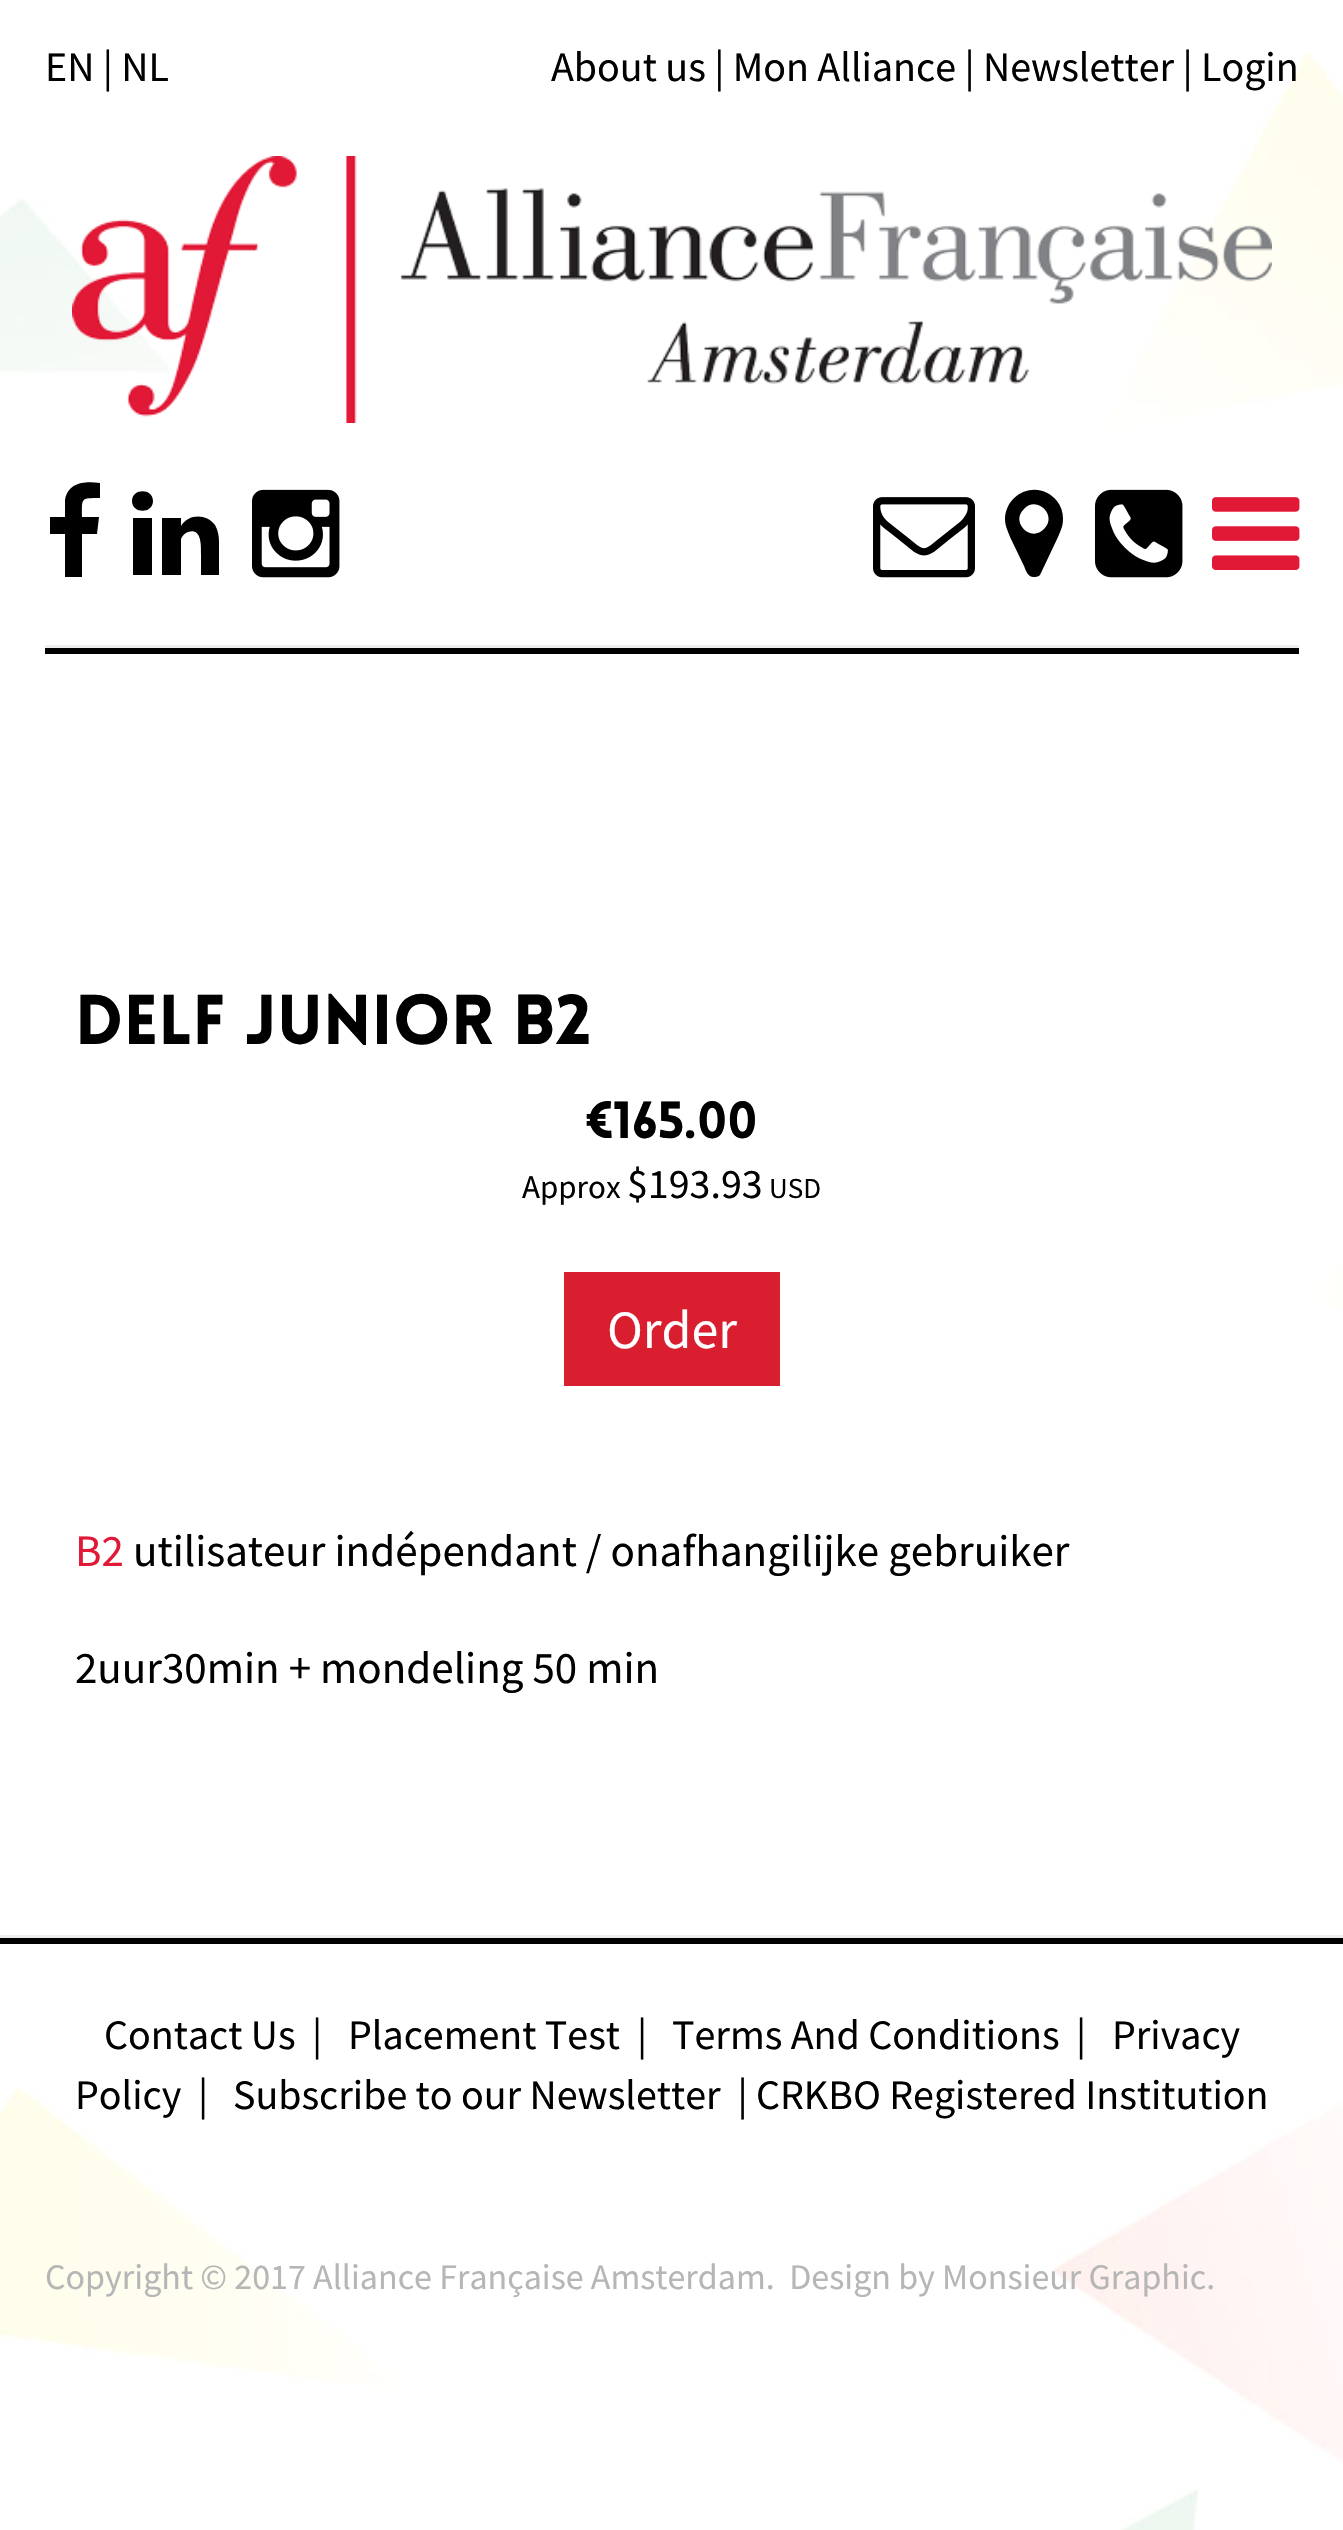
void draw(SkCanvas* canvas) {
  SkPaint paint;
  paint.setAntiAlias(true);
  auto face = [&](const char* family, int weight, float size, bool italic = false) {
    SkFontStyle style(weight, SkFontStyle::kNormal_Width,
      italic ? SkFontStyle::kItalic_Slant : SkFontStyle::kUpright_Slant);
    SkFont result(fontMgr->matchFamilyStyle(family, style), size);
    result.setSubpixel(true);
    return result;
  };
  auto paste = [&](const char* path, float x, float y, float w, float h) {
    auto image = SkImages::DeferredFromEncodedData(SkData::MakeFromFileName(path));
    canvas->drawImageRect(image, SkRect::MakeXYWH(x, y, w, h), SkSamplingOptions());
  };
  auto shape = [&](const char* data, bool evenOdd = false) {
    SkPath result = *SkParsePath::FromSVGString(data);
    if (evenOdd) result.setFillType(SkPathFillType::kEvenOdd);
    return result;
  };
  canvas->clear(0xffffffff);
  paste("img/1.png", 0, 53, 1343, 2477);
  paste("img/2.png", 72, 156, 1200, 267);
  paint.setColor(0xff000000);
  canvas->drawPath(shape("M100 483V498C80 498 82 498 82 517H99L97 534H82V577H65V534H50V517H65V500C68 482 85 481 100 483Z"), paint);
  canvas->drawPath(shape("M152 518V575H133V518ZM153 501C153 514 132 514 132 501C132 488 153 488 153 501ZM219 542V575H201V554C201 547 202 527 188 532C185 533 182 536 181 539V575H162V518H181V526C188 514 206 513 215 525C218 530 219 536 219 542Z"), paint);
  paste("img/3.png", 252, 489, 88, 89);
  paste("img/4.png", 873, 497, 102, 81);
  canvas->drawPath(shape("M1044 529C1058 516 1037 495 1024 509C1010 522 1031 543 1044 529ZM1063 519C1063 526 1061 530 1058 537L1040 575C1039 576 1037 577 1035 577C1028 578 1026 571 1024 566L1010 537C1008 531 1005 526 1005 519C1006 492 1039 479 1057 501C1061 506 1063 512 1063 519Z"), paint);
  paste("img/5.png", 1095, 489, 88, 89);
  paste("img/6.png", 1212, 497, 88, 73);
  {
    const struct { float x, y, w, h; SkColor color; } items[] = {
      {45, 645, 1254, 3, 0xffeeeeee},
      {45, 648, 1254, 6, 0xff000000},
      {564, 1272, 216, 114, 0xffd91f2f},
      {0, 1935, 1343, 3, 0xffeeeeee},
      {0, 1938, 1343, 6, 0xff000000},
    };
    for (auto [x, y, w, h, color] : items) {
      paint.setColor(color);
      canvas->drawRect(SkRect::MakeXYWH(x, y, w, h), paint);
    }
  }
  auto f0 = face("Source Sans Pro", 400, 42);
  canvas->drawString("EN | NL", 45, 81, f0, paint);
  canvas->drawString("About us | Mon Alliance | Newsletter | Login", 551, 81, f0, paint);
  auto f1 = face("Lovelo", 900, 69);
  canvas->drawString("DELF JUNIOR B2", 75, 1044, f1, paint);
  auto f2 = face("Lovelo", 900, 51);
  canvas->drawString("€165.00", 587, 1138, f2, paint);
  auto f3 = face("Source Sans Pro", 400, 33);
  canvas->drawString("Approx", 522, 1198, f3, paint);
  canvas->drawString("$193.93", 627, 1198, f0, paint);
  auto f4 = face("Source Sans Pro", 400, 29);
  canvas->drawString("USD", 769, 1198, f4, paint);
  auto f5 = face("Source Sans Pro", 400, 54);
  paint.setColor(0xffffffff);
  canvas->drawString("Order", 607, 1348, f5, paint);
  auto f6 = face("Source Sans Pro", 400, 45);
  paint.setColor(0xffe21837);
  canvas->drawString("B2", 75, 1566, f6, paint);
  paint.setColor(0xff000000);
  canvas->drawString("utilisateur indépendant / onafhangilijke gebruiker", 133, 1566, f6, paint);
  canvas->drawString("2uur30min + mondeling 50 min", 75, 1683, f6, paint);
  {
    const struct { const char* s; float x, y; } items[] = {
      {"Contact Us", 104, 2049},
      {"|", 312, 2049},
      {"Placement Test", 348, 2049},
      {"|", 637, 2049},
      {"Terms And Conditions", 672, 2049},
      {"|", 1076, 2049},
      {"Privacy", 1112, 2049},
      {"Policy", 75, 2109},
      {"|", 198, 2109},
      {"Subscribe to our Newsletter  | CRKBO Registered Institution", 233, 2109},
    };
    for (auto [s, x, y] : items) {
      canvas->drawString(s, x, y, f0, paint);
    }
  }
  auto f7 = face("Source Sans Pro", 400, 36);
  paint.setColor(0xffb6b6b6);
  canvas->drawString("Copyright © 2017 Alliance Française Amsterdam.  Design by Monsieur Graphic.", 45, 2289, f7, paint);
}
